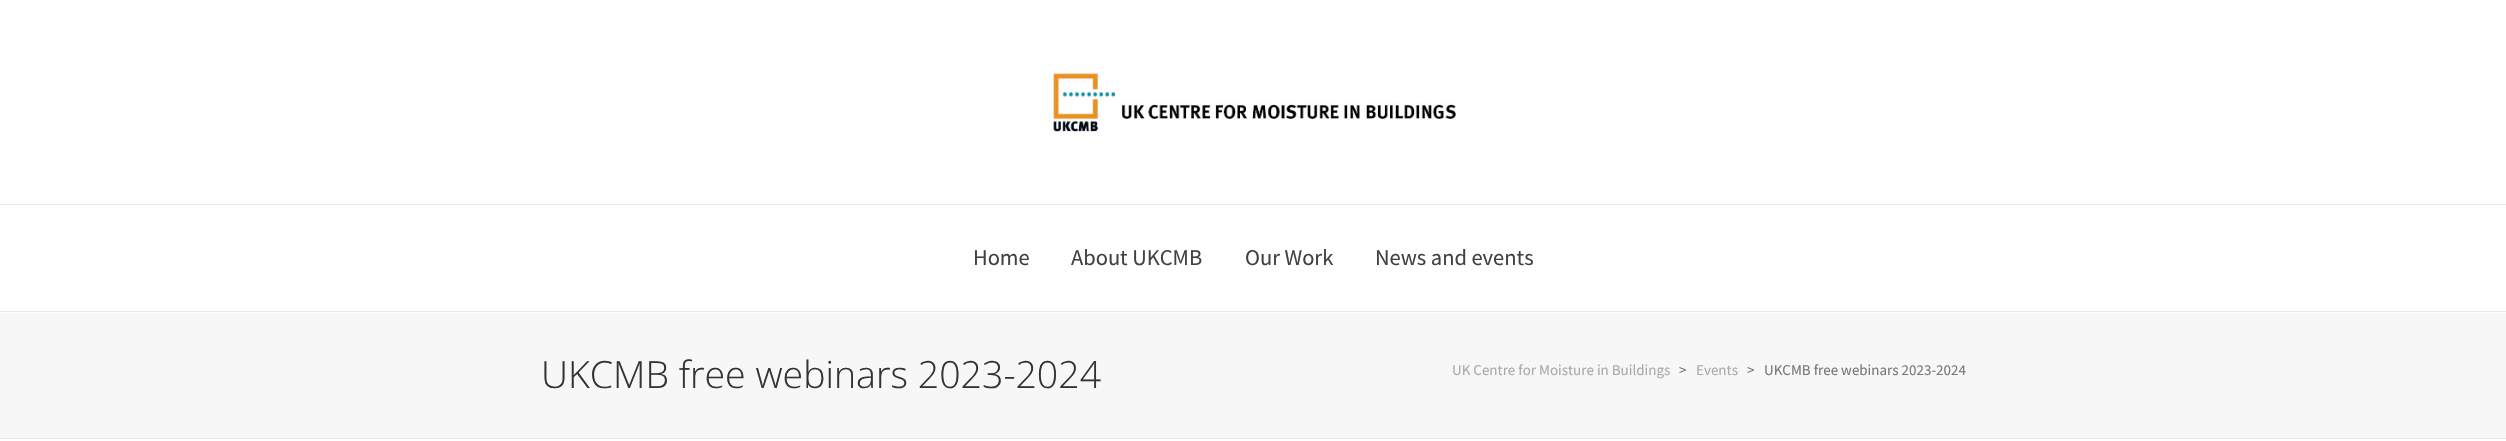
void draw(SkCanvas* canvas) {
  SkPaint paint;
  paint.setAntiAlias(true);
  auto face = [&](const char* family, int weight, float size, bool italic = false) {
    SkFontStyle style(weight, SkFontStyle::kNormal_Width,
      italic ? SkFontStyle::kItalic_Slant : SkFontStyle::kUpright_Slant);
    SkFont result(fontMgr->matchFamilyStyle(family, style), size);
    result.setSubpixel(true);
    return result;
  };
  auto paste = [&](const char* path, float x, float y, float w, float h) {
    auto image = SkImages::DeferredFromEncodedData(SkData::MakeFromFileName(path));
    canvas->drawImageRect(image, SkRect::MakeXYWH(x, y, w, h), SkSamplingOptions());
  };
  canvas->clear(0xffffffff);
  paint.setColor(0xffeaeaea);
  canvas->drawRect(SkRect::MakeXYWH(0, 204, 2506, 1), paint);
  paste("img/1.png", 1053, 71, 403, 62);
  {
    const struct { float x, y, w, h; SkColor color; } items[] = {
      {0, 311, 2506, 1, 0xffeaeaea},
      {0, 313, 2506, 125, 0xfff7f7f7},
      {0, 438, 2506, 1, 0xffeaeaea},
    };
    for (auto [x, y, w, h, color] : items) {
      paint.setColor(color);
      canvas->drawRect(SkRect::MakeXYWH(x, y, w, h), paint);
    }
  }
  auto f0 = face("Source Sans Pro", 400, 22.5f);
  paint.setColor(0xff414141);
  {
    const struct { const char* s; float x, y; } items[] = {
      {"Home", 973, 265},
      {"About UKCMB", 1071, 265},
      {"Our Work", 1245, 265},
      {"News and events", 1375, 265},
    };
    for (auto [s, x, y] : items) {
      canvas->drawString(s, x, y, f0, paint);
    }
  }
  auto f1 = face("Open Sans", 300, 37.5f);
  paint.setColor(0xff333333);
  canvas->drawString("UKCMB free webinars 2023-2024", 541, 388, f1, paint);
  auto f2 = face("Source Sans Pro", 400, 15);
  paint.setColor(0xffaaaaaa);
  canvas->drawString("UK Centre for Moisture in Buildings", 1452, 375, f2, paint);
  paint.setColor(0xff777777);
  canvas->drawString(">", 1679, 375, f2, paint);
  paint.setColor(0xffaaaaaa);
  canvas->drawString("Events", 1696, 375, f2, paint);
  paint.setColor(0xff777777);
  canvas->drawString(">", 1747, 375, f2, paint);
  canvas->drawString("UKCMB free webinars 2023-2024", 1764, 375, f2, paint);
}
